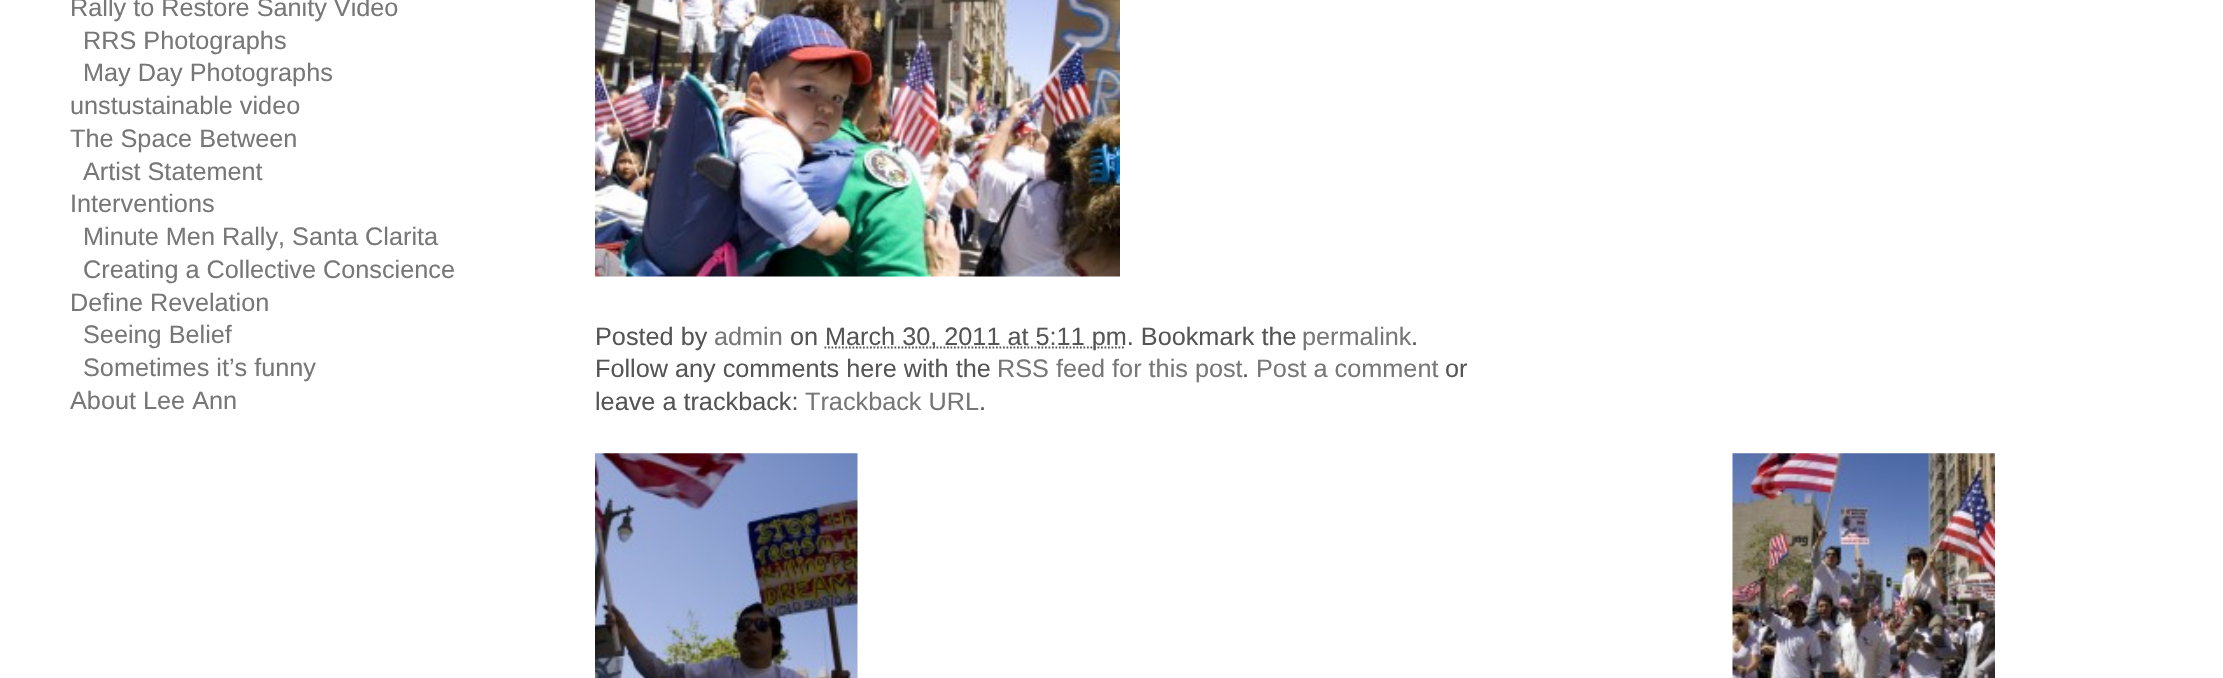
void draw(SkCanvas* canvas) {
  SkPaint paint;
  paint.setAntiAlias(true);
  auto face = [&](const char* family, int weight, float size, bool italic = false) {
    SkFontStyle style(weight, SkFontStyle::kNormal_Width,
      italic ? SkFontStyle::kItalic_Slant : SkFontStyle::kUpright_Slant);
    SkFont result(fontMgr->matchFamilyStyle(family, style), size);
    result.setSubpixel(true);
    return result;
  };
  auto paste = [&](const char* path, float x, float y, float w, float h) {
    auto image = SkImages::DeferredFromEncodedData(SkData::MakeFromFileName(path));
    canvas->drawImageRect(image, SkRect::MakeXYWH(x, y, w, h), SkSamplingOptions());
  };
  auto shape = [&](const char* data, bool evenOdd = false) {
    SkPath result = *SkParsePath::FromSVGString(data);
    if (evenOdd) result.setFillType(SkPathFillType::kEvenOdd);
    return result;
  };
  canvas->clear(0xffffffff);
  paste("img/1.png", 595, 0, 525, 277);
  paint.setStroke(true);
  paint.setStrokeWidth(1.8f);
  paint.setColor(0xff555555);
  paint.setPathEffect(SkDashPathEffect::Make({{1.75f, 1.75f}}, 0));
  canvas->drawPath(shape("M824.5 347.5H1125.5"), paint);
  paint.setPathEffect(nullptr);
  paste("img/2.png", 595, 453, 263, 225);
  paste("img/3.png", 1732, 453, 263, 225);
  auto f0 = face("Liberation Sans", 400, 25.25f);
  paint.setStroke(false);
  paint.setColor(0xff777777);
  {
    const struct { const char* s; float x, y; } items[] = {
      {"Rally to Restore Sanity Video", 70, 16},
      {"RRS Photographs", 83, 49},
      {"May Day Photographs", 83, 81},
      {"unstustainable video", 70, 114},
      {"The Space Between", 70, 147},
      {"Artist Statement", 83, 180},
      {"Interventions", 70, 212},
      {"Minute Men Rally, Santa Clarita", 83, 245},
      {"Creating a Collective Conscience", 83, 278},
      {"Define Revelation", 70, 311},
      {"Seeing Belief", 83, 343},
      {"Sometimes it’s funny", 83, 376},
      {"About Lee Ann", 70, 409},
    };
    for (auto [s, x, y] : items) {
      canvas->drawString(s, x, y, f0, paint);
    }
  }
  paint.setColor(0xff555555);
  canvas->drawString("Posted by", 595, 345, f0, paint);
  paint.setColor(0xff777777);
  canvas->drawString("admin", 714, 345, f0, paint);
  paint.setColor(0xff555555);
  canvas->drawString("on", 790, 345, f0, paint);
  canvas->drawString("March 30, 2011 at 5:11 pm. Bookmark the", 825, 345, f0, paint);
  paint.setColor(0xff777777);
  canvas->drawString("permalink", 1302, 345, f0, paint);
  paint.setColor(0xff555555);
  canvas->drawString(".", 1411, 345, f0, paint);
  canvas->drawString("Follow any comments here with the", 595, 377, f0, paint);
  paint.setColor(0xff777777);
  canvas->drawString("RSS feed for this post", 997, 377, f0, paint);
  paint.setColor(0xff555555);
  canvas->drawString(".", 1242, 377, f0, paint);
  paint.setColor(0xff777777);
  canvas->drawString("Post a comment", 1256, 377, f0, paint);
  paint.setColor(0xff555555);
  canvas->drawString("or", 1445, 377, f0, paint);
  canvas->drawString("leave a trackback:", 595, 410, f0, paint);
  paint.setColor(0xff777777);
  canvas->drawString("Trackback URL", 805, 410, f0, paint);
  paint.setColor(0xff555555);
  canvas->drawString(".", 979, 410, f0, paint);
}
